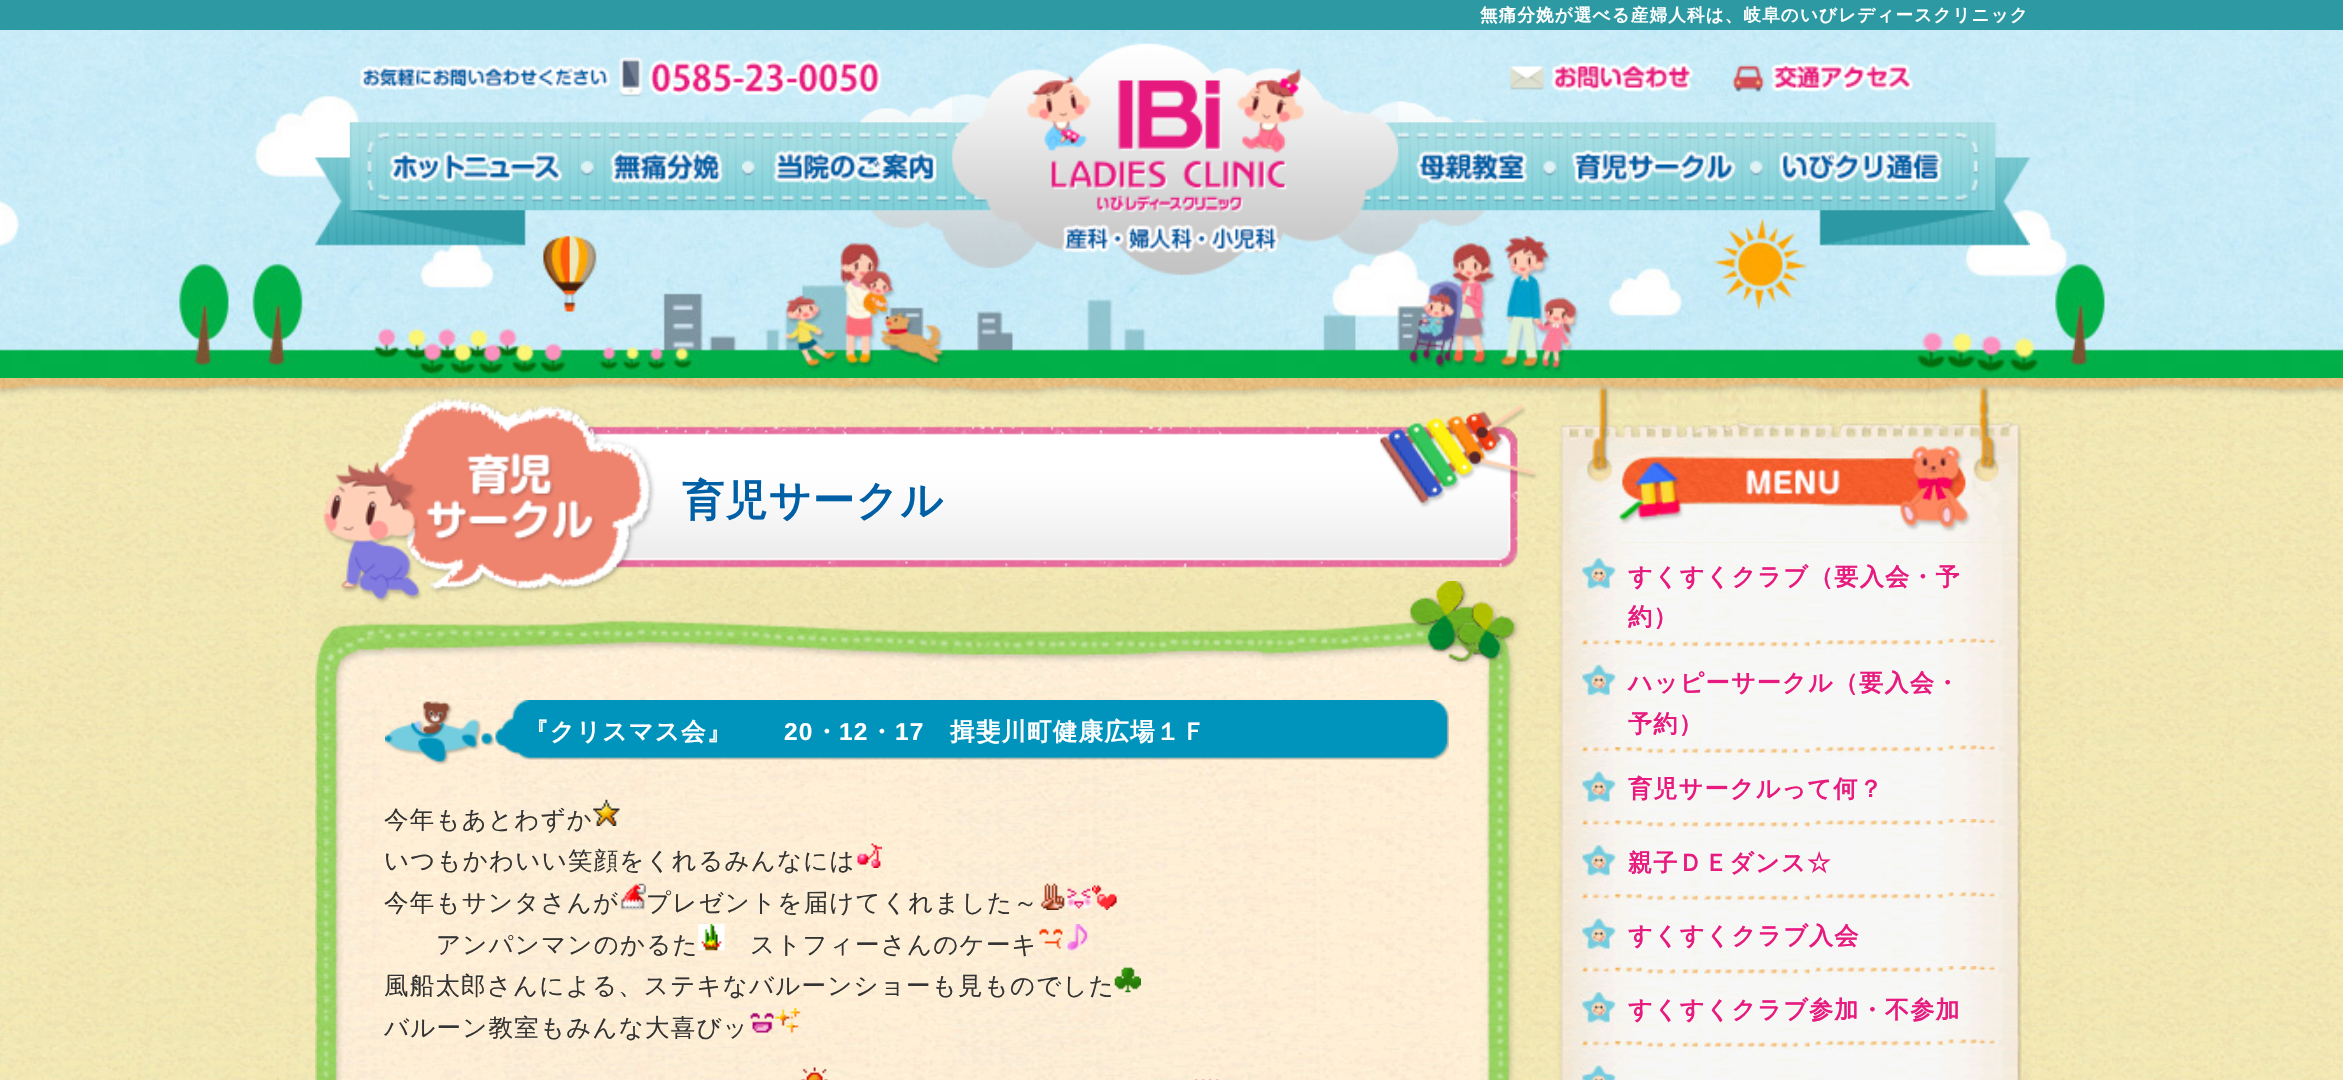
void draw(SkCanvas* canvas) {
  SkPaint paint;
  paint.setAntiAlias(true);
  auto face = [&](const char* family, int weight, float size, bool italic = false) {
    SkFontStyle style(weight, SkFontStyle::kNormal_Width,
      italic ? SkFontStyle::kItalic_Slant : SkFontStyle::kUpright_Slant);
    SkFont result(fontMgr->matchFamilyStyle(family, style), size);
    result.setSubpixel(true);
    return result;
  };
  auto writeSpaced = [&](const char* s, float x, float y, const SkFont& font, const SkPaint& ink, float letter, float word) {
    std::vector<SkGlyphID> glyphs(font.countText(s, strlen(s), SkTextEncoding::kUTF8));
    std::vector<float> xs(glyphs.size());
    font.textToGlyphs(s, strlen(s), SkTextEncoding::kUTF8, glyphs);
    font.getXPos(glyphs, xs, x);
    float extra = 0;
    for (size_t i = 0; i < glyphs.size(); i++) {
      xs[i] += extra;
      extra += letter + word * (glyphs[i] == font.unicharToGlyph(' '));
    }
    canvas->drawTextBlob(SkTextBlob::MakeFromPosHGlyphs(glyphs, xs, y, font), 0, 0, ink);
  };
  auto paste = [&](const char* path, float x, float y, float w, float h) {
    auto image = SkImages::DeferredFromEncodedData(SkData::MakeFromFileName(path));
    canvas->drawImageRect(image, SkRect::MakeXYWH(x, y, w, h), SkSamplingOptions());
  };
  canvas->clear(0xffffffff);
  paste("img/1.png", 0, 378, 2343, 702);
  paste("img/2.png", 0, 30, 2343, 348);
  paint.setColor(0xff2c99a3);
  canvas->drawRect(SkRect::MakeXYWH(0, 0, 2343, 30), paint);
  paste("img/3.png", 315, 43, 1715, 233);
  paste("img/4.png", 350, 122, 231, 88);
  paste("img/5.png", 581, 122, 161, 88);
  paste("img/6.png", 742, 122, 210, 88);
  paste("img/7.png", 1027, 68, 278, 186);
  paste("img/8.png", 1398, 122, 146, 88);
  paste("img/9.png", 1543, 122, 207, 88);
  paste("img/10.png", 1750, 122, 245, 88);
  paste("img/11.png", 359, 57, 593, 66);
  paste("img/12.png", 1398, 61, 297, 62);
  paste("img/13.png", 1732, 62, 182, 31);
  paste("img/15.png", 323, 397, 1214, 207);
  paste("img/35.png", 1557, 542, 473, 538);
  paste("img/37.png", 1557, 542, 74, 64);
  paste("img/34.png", 1557, 378, 473, 165);
  paste("img/14.png", 0, 378, 2343, 20);
  paste("img/16.png", 315, 581, 1208, 119);
  paste("img/17.png", 315, 700, 1208, 380);
  paste("img/18.png", 315, 1023, 1207, 57);
  paste("img/19.png", 385, 700, 1064, 65);
  paste("img/20.png", 593, 799, 27, 27);
  paste("img/21.png", 857, 843, 25, 25);
  paste("img/22.png", 620, 883, 26, 27);
  paste("img/23.png", 1040, 883, 26, 27);
  paste("img/24.png", 1065, 888, 27, 21);
  paste("img/25.png", 1092, 885, 25, 25);
  paste("img/26.png", 698, 924, 27, 27);
  paste("img/27.png", 1039, 928, 24, 21);
  paste("img/28.png", 1065, 924, 23, 27);
  paste("img/29.png", 1114, 967, 27, 26);
  paste("img/30.png", 750, 1012, 24, 21);
  paste("img/31.png", 775, 1008, 26, 25);
  paste("img/32.png", 801, 1067, 27, 13);
  paste("img/33.png", 1195, 1079, 24, 1);
  paste("img/36.png", 1557, 638, 473, 12);
  paste("img/38.png", 1557, 745, 473, 11);
  paste("img/39.png", 1557, 649, 74, 63);
  paste("img/40.png", 1557, 819, 473, 11);
  paste("img/41.png", 1557, 756, 74, 63);
  paste("img/42.png", 1557, 892, 473, 11);
  paste("img/43.png", 1557, 830, 74, 63);
  paste("img/44.png", 1557, 966, 473, 11);
  paste("img/45.png", 1557, 904, 74, 62);
  paste("img/46.png", 1557, 1039, 473, 11);
  paste("img/47.png", 1557, 976, 74, 63);
  paste("img/48.png", 1557, 1050, 74, 30);
  auto f0 = face("WenQuanYi Zen Hei", 700, 17.5f);
  paint.setColor(0xffffffff);
  writeSpaced("無痛分娩が選べる産婦人科は、岐阜のいびレディースクリニック", 1480, 21, f0, paint, 1.2f, 0);
  auto f1 = face("WenQuanYi Zen Hei", 700, 42);
  paint.setColor(0xff005fa5);
  writeSpaced("育児サークル", 682, 515, f1, paint, 1.2f, 0);
  auto f2 = face("WenQuanYi Zen Hei", 700, 24.5f);
  paint.setColor(0xffffffff);
  writeSpaced("『クリスマス会』", 524, 740, f2, paint, 1.2f, 0);
  auto f3 = face("Liberation Sans", 700, 24.5f);
  writeSpaced("20", 784, 740, f3, paint, 1.2f, 0);
  writeSpaced("・", 814, 740, f2, paint, 1.2f, 0);
  writeSpaced("12", 839, 740, f3, paint, 1.2f, 0);
  writeSpaced("・", 869, 740, f2, paint, 1.2f, 0);
  writeSpaced("17", 895, 740, f3, paint, 1.2f, 0);
  writeSpaced("揖斐川町健康広場１Ｆ", 950, 740, f2, paint, 1.2f, 0);
  auto f4 = face("WenQuanYi Zen Hei", 500, 24.5f);
  paint.setColor(0xff333333);
  {
    const struct { const char* s; float x, y; } items[] = {
      {"今年もあとわずか", 384, 828},
      {"いつもかわいい笑顔をくれるみんなには", 384, 869},
      {"今年もサンタさんが", 384, 911},
      {"プレゼントを届けてくれました～", 646, 911},
      {"アンパンマンのかるた", 436, 953},
      {"ストフィーさんのケーキ", 750, 953},
      {"風船太郎さんによる、ステキなバルーンショーも見ものでした", 384, 994},
      {"バルーン教室もみんな大喜びッ", 384, 1036},
    };
    for (auto [s, x, y] : items) {
      writeSpaced(s, x, y, f4, paint, 1.2f, 0);
    }
  }
  auto f5 = face("WenQuanYi Zen Hei", 700, 24.1f);
  paint.setColor(0xffe71b7f);
  {
    const struct { const char* s; float x, y; } items[] = {
      {"すくすくクラブ（要入会・予", 1628, 585},
      {"約）", 1628, 625},
      {"ハッピーサークル（要入会・", 1628, 691},
      {"予約）", 1628, 732},
      {"育児サークルって何？", 1628, 797},
      {"親子ＤＥダンス☆", 1628, 871},
      {"すくすくクラブ入会", 1628, 944},
      {"すくすくクラブ参加・不参加", 1628, 1018},
    };
    for (auto [s, x, y] : items) {
      writeSpaced(s, x, y, f5, paint, 1.2f, 0);
    }
  }
}
